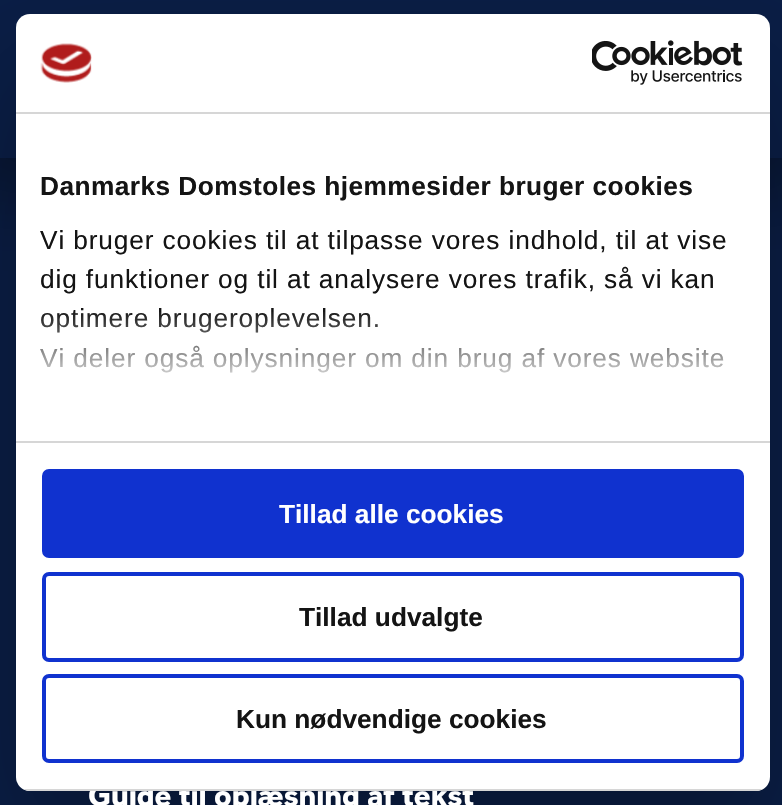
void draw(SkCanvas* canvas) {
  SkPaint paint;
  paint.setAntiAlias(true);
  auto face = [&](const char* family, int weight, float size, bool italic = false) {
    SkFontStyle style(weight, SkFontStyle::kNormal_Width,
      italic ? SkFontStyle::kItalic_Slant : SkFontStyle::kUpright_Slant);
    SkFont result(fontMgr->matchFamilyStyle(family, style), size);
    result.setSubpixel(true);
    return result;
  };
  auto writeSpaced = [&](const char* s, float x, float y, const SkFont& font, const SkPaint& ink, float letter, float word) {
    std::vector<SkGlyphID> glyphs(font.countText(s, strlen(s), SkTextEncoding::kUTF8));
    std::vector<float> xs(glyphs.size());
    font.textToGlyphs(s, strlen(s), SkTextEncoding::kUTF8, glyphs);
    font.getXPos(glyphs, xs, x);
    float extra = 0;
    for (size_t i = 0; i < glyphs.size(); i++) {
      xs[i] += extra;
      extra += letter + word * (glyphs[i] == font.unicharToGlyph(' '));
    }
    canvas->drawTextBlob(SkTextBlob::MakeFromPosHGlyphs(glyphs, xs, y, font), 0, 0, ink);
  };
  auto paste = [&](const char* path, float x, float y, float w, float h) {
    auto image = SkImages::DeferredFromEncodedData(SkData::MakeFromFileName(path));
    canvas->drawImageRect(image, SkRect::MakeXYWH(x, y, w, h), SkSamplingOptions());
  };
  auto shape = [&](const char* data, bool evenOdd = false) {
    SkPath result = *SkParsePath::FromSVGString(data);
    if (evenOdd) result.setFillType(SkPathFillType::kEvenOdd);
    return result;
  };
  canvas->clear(0xff0a1e46);
  paint.setColor(0x59000000);
  paint.setMaskFilter(SkMaskFilter::MakeBlur(kNormal_SkBlurStyle, 39.5f));
  canvas->drawRect(SkRect::MakeXYWH(-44, -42, 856, 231), paint);
  paint.setMaskFilter(nullptr);
  paint.setColor(0xff0a1e46);
  canvas->drawRect(SkRect::MakeXYWH(0, 0, 782, 158), paint);
  paint.setColor(0x4d000000);
  paint.setMaskFilter(SkMaskFilter::MakeBlur(kNormal_SkBlurStyle, 59.5f));
  canvas->drawRoundRect(SkRect::MakeXYWH(16, 70, 754, 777), 14, 14, paint);
  paint.setMaskFilter(nullptr);
  paint.setColor(0xffffffff);
  canvas->drawRoundRect(SkRect::MakeXYWH(16, 14, 754, 777), 14, 14, paint);
  paint.setColor(0xffd6d6d6);
  canvas->drawRect(SkRect::MakeXYWH(16, 112, 754, 2), paint);
  paste("img/1.png", 40, 43, 52, 40);
  paste("img/2.png", 592, 40, 151, 45);
  canvas->drawRect(SkRect::MakeXYWH(16, 441, 754, 2), paint);
  paint.setColor(0xff1032cf);
  canvas->drawRoundRect(SkRect::MakeXYWH(44, 471, 698, 85), 5, 5, paint);
  paint.setStroke(true);
  paint.setStrokeWidth(4);
  canvas->drawRoundRect(SkRect::MakeXYWH(44, 471, 698, 85), 5, 5, paint);
  canvas->drawRoundRect(SkRect::MakeXYWH(44, 574, 698, 86), 5, 5, paint);
  canvas->drawRoundRect(SkRect::MakeXYWH(44, 676, 698, 85), 5, 5, paint);
  auto f0 = face("Liberation Sans", 700, 26.25f);
  paint.setStroke(false);
  paint.setColor(0xff141414);
  writeSpaced("Danmarks Domstoles hjemmesider bruger cookies", 40, 195, f0, paint, 0.45f, 0);
  auto f1 = face("Liberation Sans", 400, 26.25f);
  {
    const struct { const char* s; float x, y; } items[] = {
      {"Vi bruger cookies til at tilpasse vores indhold, til at vise", 40, 249},
      {"dig funktioner og til at analysere vores trafik, så vi kan", 40, 288},
      {"optimere brugeroplevelsen.", 40, 327},
      {"Vi deler også oplysninger om din brug af vores website", 40, 367},
    };
    for (auto [s, x, y] : items) {
      writeSpaced(s, x, y, f1, paint, 0.88f, 0);
    }
  }
  {
    const SkColor colors[] = {0xffffffff, 0xccffffff, 0x00ffffff};
    const float stops[] = {0, 0.5f, 1};
    const SkPoint ends[] = {{381, 441}, {381, 310}};
    paint.setShader(SkGradientShader::MakeLinear(ends, colors, stops, 3, SkTileMode::kClamp));
    paint.setAlpha(255);
  }
  canvas->drawRect(SkRect::MakeXYWH(40, 312, 684, 61), paint);
  paint.setShader(nullptr);
  paint.setColor(0xffffffff);
  canvas->drawString("Tillad alle cookies", 279, 523, f0, paint);
  paint.setColor(0xff141414);
  canvas->drawString("Tillad udvalgte", 299, 626, f0, paint);
  canvas->drawString("Kun nødvendige cookies", 236, 728, f0, paint);
  auto f2 = face("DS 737", 700, 28);
  paint.setColor(0xffffffff);
  canvas->drawString("Guide til oplæsning af tekst", 88, 806, f2, paint);
  canvas->save();
  canvas->clipPath(shape("M30 14H756C763.5 14 770 20.5 770 28V777C770 784.5 763.5 791 756 791H30C22.5 791 16 784.5 16 777V28C16 20.5 22.5 14 30 14Z"), true);
  paint.setColor(0xffd6d6d6);
  canvas->drawRect(SkRect::MakeXYWH(16, 789, 754, 2), paint);
  canvas->restore();
}
